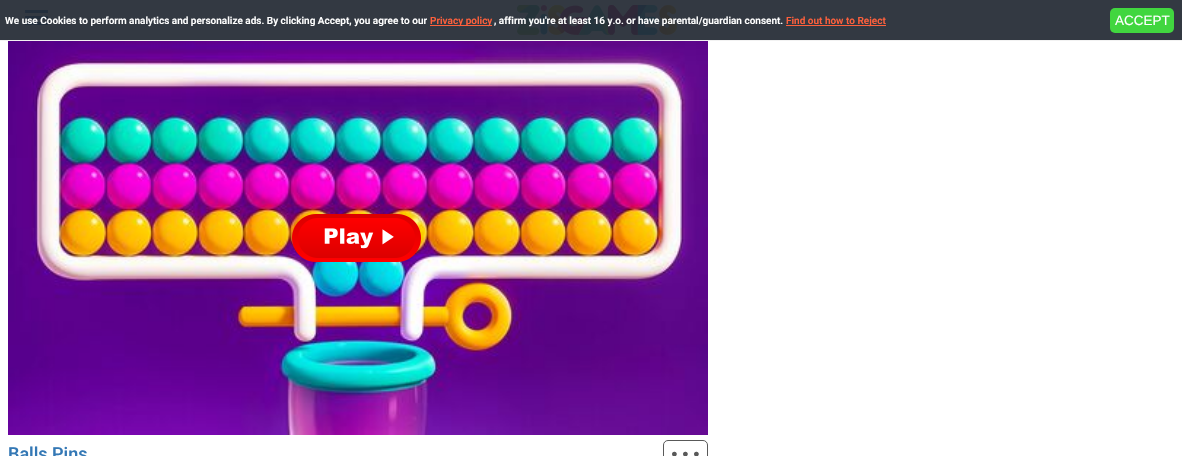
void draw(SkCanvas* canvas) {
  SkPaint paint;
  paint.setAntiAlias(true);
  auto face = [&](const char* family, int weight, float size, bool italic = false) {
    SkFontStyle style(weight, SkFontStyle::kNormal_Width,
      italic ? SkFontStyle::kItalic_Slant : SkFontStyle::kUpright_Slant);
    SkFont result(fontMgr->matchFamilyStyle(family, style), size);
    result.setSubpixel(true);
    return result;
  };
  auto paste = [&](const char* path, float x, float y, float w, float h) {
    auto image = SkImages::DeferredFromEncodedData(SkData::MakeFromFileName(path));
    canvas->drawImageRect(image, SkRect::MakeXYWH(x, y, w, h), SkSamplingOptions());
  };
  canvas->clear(0xffffffff);
  {
    const struct { float x, y, w, h; SkColor color; } items[] = {
      {0, 0, 1182, 40, 0xff333942},
      {430, 25, 62, 1, 0xffff603c},
      {786, 25, 100, 1, 0xffff603c},
    };
    for (auto [x, y, w, h, color] : items) {
      paint.setColor(color);
      canvas->drawRect(SkRect::MakeXYWH(x, y, w, h), paint);
    }
  }
  paint.setColor(0xff41d63f);
  canvas->drawRoundRect(SkRect::MakeXYWH(1110, 8, 64, 25), 5, 5, paint);
  {
    const struct { float x, y, w, h; SkColor color; } items[] = {
      {0, 40, 1182, 1, 0xfff2f2f2},
      {25, 10, 23, 3, 0xff232e3c},
      {25, 16, 23, 3, 0xff232e3c},
      {25, 22, 23, 3, 0xff232e3c},
    };
    for (auto [x, y, w, h, color] : items) {
      paint.setColor(color);
      canvas->drawRect(SkRect::MakeXYWH(x, y, w, h), paint);
    }
  }
  paste("img/1.png", 517, 5, 160, 30);
  paste("img/2.png", 8, 41, 700, 394);
  paste("img/3.png", 292, 214, 129, 48);
  paint.setStroke(true);
  paint.setStrokeWidth(1);
  paint.setColor(0xff595959);
  canvas->drawRoundRect(SkRect::MakeXYWH(663.5f, 440.5f, 44, 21), 4.5f, 4.5f, paint);
  auto f0 = face("Roboto", 600, 10);
  paint.setStroke(false);
  paint.setColor(0xffffffff);
  canvas->drawString("We use Cookies to perform analytics and personalize ads. By clicking Accept, you agree to our", 5, 24, f0, paint);
  paint.setColor(0xffff603c);
  canvas->drawString("Privacy policy", 430, 24, f0, paint);
  paint.setColor(0xffffffff);
  canvas->drawString(", affirm you're at least 16 y.o. or have parental/guardian consent.", 494, 24, f0, paint);
  paint.setColor(0xffff603c);
  canvas->drawString("Find out how to Reject", 786, 24, f0, paint);
  auto f1 = face("Liberation Sans", 400, 13.5f);
  paint.setColor(0xffffffff);
  canvas->drawString("ACCEPT", 1115, 25, f1, paint);
  auto f2 = face("Roboto", 500, 18);
  paint.setColor(0xff3478b5);
  canvas->drawString("Balls Pins", 8, 460, f2, paint);
  auto f3 = face("Roboto", 400, 42);
  paint.setColor(0xff595959);
  canvas->drawString("···", 669, 469, f3, paint);
}
